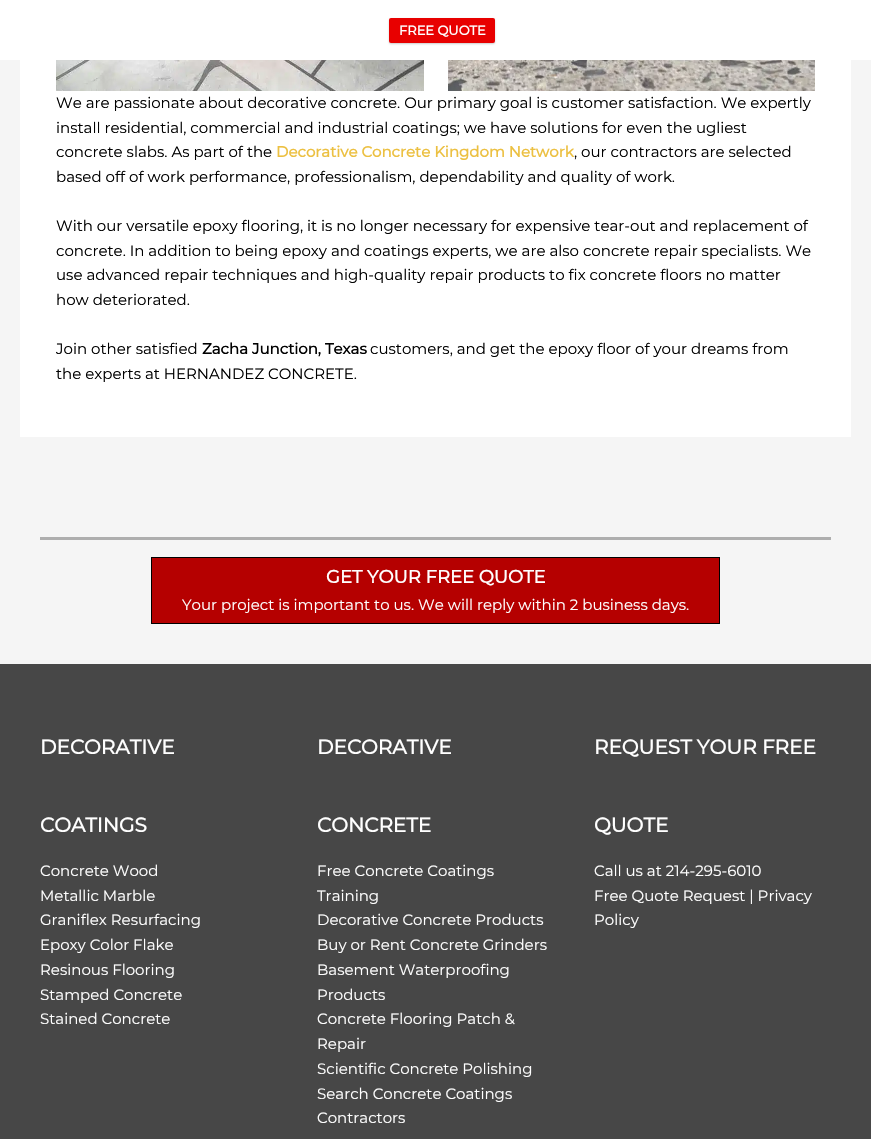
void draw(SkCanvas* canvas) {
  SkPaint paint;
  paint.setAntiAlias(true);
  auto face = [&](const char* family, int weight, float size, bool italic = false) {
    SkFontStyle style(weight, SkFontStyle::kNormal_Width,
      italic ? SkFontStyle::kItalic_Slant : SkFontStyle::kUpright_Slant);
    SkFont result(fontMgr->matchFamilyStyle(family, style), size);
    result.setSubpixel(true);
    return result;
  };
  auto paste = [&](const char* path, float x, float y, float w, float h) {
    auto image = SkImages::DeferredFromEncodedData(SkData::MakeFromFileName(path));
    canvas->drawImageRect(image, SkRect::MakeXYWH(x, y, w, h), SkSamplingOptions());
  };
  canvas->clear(0xfff5f5f5);
  paint.setColor(0xffffffff);
  canvas->drawRect(SkRect::MakeXYWH(0, 0, 871, 60), paint);
  paint.setColor(0x33000000);
  paint.setMaskFilter(SkMaskFilter::MakeBlur(kNormal_SkBlurStyle, 1));
  canvas->drawRoundRect(SkRect::MakeXYWH(389, 19, 106, 25), 2, 2, paint);
  paint.setMaskFilter(nullptr);
  paint.setColor(0xffe80000);
  canvas->drawRoundRect(SkRect::MakeXYWH(389, 18, 106, 25), 2, 2, paint);
  paint.setColor(0xffffffff);
  canvas->drawRect(SkRect::MakeXYWH(20, 60, 831, 377), paint);
  paste("img/1.png", 56, 60, 368, 31);
  paste("img/2.png", 448, 60, 367, 31);
  paint.setColor(0xffaeaeae);
  canvas->drawRect(SkRect::MakeXYWH(40, 537, 791, 3), paint);
  paint.setColor(0xffb50000);
  canvas->drawRect(SkRect::MakeXYWH(151.5f, 557.5f, 568, 66), paint);
  paint.setStroke(true);
  paint.setStrokeWidth(1);
  paint.setColor(0xff000000);
  canvas->drawRect(SkRect::MakeXYWH(151.5f, 557.5f, 568, 66), paint);
  paint.setStroke(false);
  paint.setColor(0xff474747);
  canvas->drawRect(SkRect::MakeXYWH(0, 664, 871, 475), paint);
  auto f0 = face("Montserrat", 700, 13);
  paint.setColor(0xffffffff);
  canvas->drawString("FREE QUOTE", 399, 35, f0, paint);
  auto f1 = face("Montserrat", 100, 15);
  paint.setColor(0xff000000);
  {
    const struct { const char* s; float x, y; } items[] = {
      {"We are passionate about decorative concrete. Our primary goal is customer satisfaction. We expertly", 56, 108},
      {"install residential, commercial and industrial coatings; we have solutions for even the ugliest", 56, 133},
      {"concrete slabs. As part of the", 56, 157},
    };
    for (auto [s, x, y] : items) {
      canvas->drawString(s, x, y, f1, paint);
    }
  }
  auto f2 = face("Montserrat", 700, 15);
  paint.setColor(0xffecc041);
  canvas->drawString("Decorative Concrete Kingdom Network", 276, 157, f2, paint);
  paint.setColor(0xff000000);
  {
    const struct { const char* s; float x, y; } items[] = {
      {", our contractors are selected", 574, 157},
      {"based off of work performance, professionalism, dependability and quality of work.", 56, 182},
      {"With our versatile epoxy flooring, it is no longer necessary for expensive tear-out and replacement of", 56, 231},
      {"concrete. In addition to being epoxy and coatings experts, we are also concrete repair specialists. We", 56, 256},
      {"use advanced repair techniques and high-quality repair products to fix concrete floors no matter", 56, 280},
      {"how deteriorated.", 56, 305},
      {"Join other satisfied", 56, 354},
    };
    for (auto [s, x, y] : items) {
      canvas->drawString(s, x, y, f1, paint);
    }
  }
  canvas->drawString("Zacha Junction, Texas", 202, 354, f2, paint);
  canvas->drawString("customers, and get the epoxy floor of your dreams from", 370, 354, f1, paint);
  canvas->drawString("the experts at HERNANDEZ CONCRETE.", 56, 379, f1, paint);
  auto f3 = face("Montserrat", 700, 18);
  paint.setColor(0xffffffff);
  canvas->drawString("GET YOUR FREE QUOTE", 326, 583, f3, paint);
  canvas->drawString("Your project is important to us. We will reply within 2 business days.", 182, 610, f1, paint);
  auto f4 = face("Montserrat", 700, 20);
  canvas->drawString("DECORATIVE", 40, 754, f4, paint);
  canvas->drawString("COATINGS", 40, 832, f4, paint);
  {
    const struct { const char* s; float x, y; } items[] = {
      {"Concrete Wood", 40, 876},
      {"Metallic Marble", 40, 901},
      {"Graniflex Resurfacing", 40, 925},
      {"Epoxy Color Flake", 40, 950},
      {"Resinous Flooring", 40, 975},
      {"Stamped Concrete", 40, 1000},
      {"Stained Concrete", 40, 1024},
    };
    for (auto [s, x, y] : items) {
      canvas->drawString(s, x, y, f1, paint);
    }
  }
  canvas->drawString("DECORATIVE", 317, 754, f4, paint);
  canvas->drawString("CONCRETE", 317, 832, f4, paint);
  {
    const struct { const char* s; float x, y; } items[] = {
      {"Free Concrete Coatings", 317, 876},
      {"Training", 317, 901},
      {"Decorative Concrete Products", 317, 925},
      {"Buy or Rent Concrete Grinders", 317, 950},
      {"Basement Waterproofing", 317, 975},
      {"Products", 317, 1000},
      {"Concrete Flooring Patch &", 317, 1024},
      {"Repair", 317, 1049},
      {"Scientific Concrete Polishing", 317, 1074},
      {"Search Concrete Coatings", 317, 1099},
      {"Contractors", 317, 1123},
    };
    for (auto [s, x, y] : items) {
      canvas->drawString(s, x, y, f1, paint);
    }
  }
  canvas->drawString("REQUEST YOUR FREE", 594, 754, f4, paint);
  canvas->drawString("QUOTE", 594, 832, f4, paint);
  {
    const struct { const char* s; float x, y; } items[] = {
      {"Call us at 214-295-6010", 594, 876},
      {"Free Quote Request | Privacy", 594, 901},
      {"Policy", 594, 925},
    };
    for (auto [s, x, y] : items) {
      canvas->drawString(s, x, y, f1, paint);
    }
  }
}
